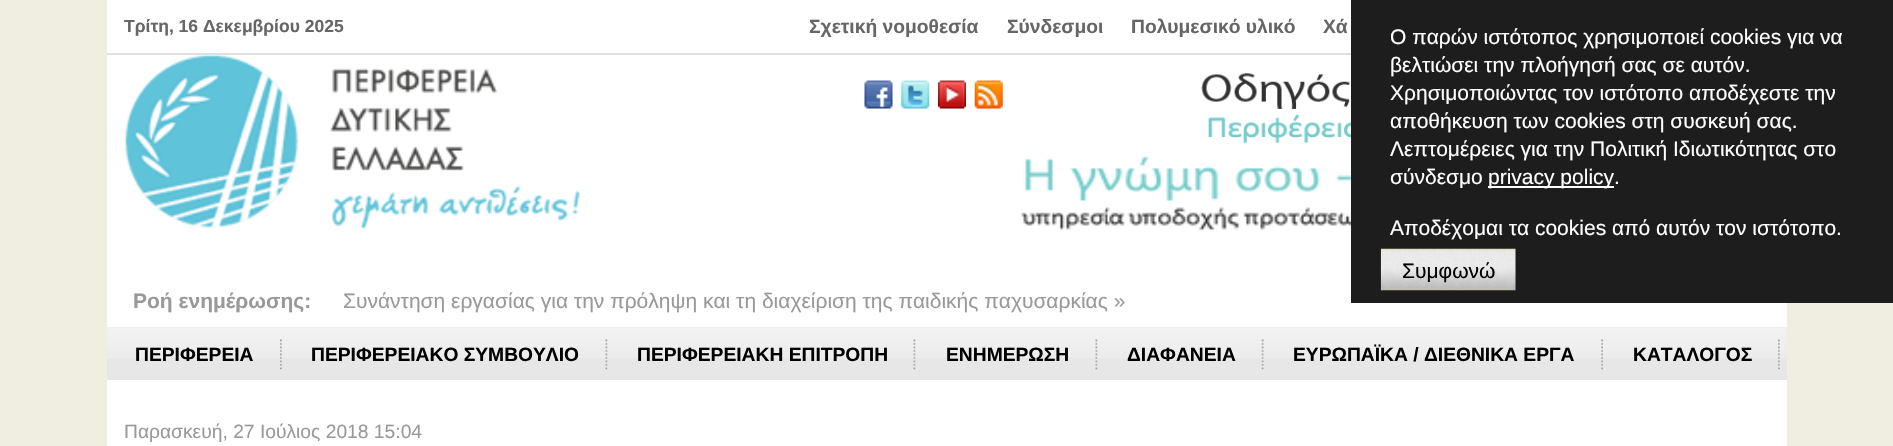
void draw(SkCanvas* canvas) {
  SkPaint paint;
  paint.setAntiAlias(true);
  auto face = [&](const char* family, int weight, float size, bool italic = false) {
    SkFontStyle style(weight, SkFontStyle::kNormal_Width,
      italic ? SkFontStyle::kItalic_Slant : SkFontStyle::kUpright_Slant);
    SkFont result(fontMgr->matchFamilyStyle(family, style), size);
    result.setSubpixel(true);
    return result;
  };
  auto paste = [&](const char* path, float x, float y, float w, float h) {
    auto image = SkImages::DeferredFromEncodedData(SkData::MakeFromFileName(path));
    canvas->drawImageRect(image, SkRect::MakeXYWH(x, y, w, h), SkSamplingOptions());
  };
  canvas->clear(0xfff0eee1);
  paint.setColor(0xffffffff);
  canvas->drawRect(SkRect::MakeXYWH(107, 0, 1680, 446), paint);
  paint.setColor(0xffe0e0e0);
  canvas->drawRect(SkRect::MakeXYWH(107, 53, 1244, 2), paint);
  paste("img/1.png", 124, 55, 456, 175);
  paste("img/2.png", 864, 80, 29, 29);
  paste("img/3.png", 901, 80, 29, 29);
  paste("img/4.png", 938, 80, 28, 29);
  paste("img/5.png", 974, 80, 29, 29);
  paste("img/6.png", 1201, 73, 150, 71);
  paste("img/7.png", 1021, 155, 330, 76);
  paint.setColor(0xffe7e7e7);
  canvas->drawRect(SkRect::MakeXYWH(107, 327, 1680, 53), paint);
  paste("img/8.png", 106, 327, 1681, 31);
  paste("img/9.png", 280, 339, 2, 31);
  paste("img/10.png", 605, 339, 3, 31);
  paste("img/10.png", 913, 339, 3, 31);
  paste("img/10.png", 1095, 339, 3, 31);
  paste("img/11.png", 1261, 339, 3, 31);
  paste("img/12.png", 1601, 339, 2, 31);
  paste("img/9.png", 1778, 339, 2, 31);
  paint.setColor(0xff1d1d1d);
  canvas->drawRect(SkRect::MakeXYWH(1351, 0, 542, 303), paint);
  paint.setColor(0xffffffff);
  canvas->drawRect(SkRect::MakeXYWH(1488, 186, 126, 2), paint);
  paste("img/13.png", 1380, 248, 136, 43);
  auto f0 = face("Liberation Sans", 700, 17.5f);
  paint.setColor(0xff666666);
  canvas->drawString("Τρίτη, 16 Δεκεμβρίου 2025", 124, 32, f0, paint);
  auto f1 = face("Liberation Sans", 700, 19.25f);
  {
    const struct { const char* s; float x, y; } items[] = {
      {"Σχετική νομοθεσία", 809, 33},
      {"Σύνδεσμοι", 1007, 33},
      {"Πολυμεσικό υλικό", 1131, 33},
      {"Χά", 1323, 33},
    };
    for (auto [s, x, y] : items) {
      canvas->drawString(s, x, y, f1, paint);
    }
  }
  auto f2 = face("Liberation Sans", 700, 21);
  paint.setColor(0xff999999);
  canvas->drawString("Ροή ενημέρωσης:", 133, 308, f2, paint);
  auto f3 = face("Liberation Sans", 400, 21);
  canvas->drawString("Συνάντηση εργασίας για την πρόληψη και τη διαχείριση της παιδικής παχυσαρκίας »", 343, 308, f3, paint);
  paint.setColor(0xff000000);
  {
    const struct { const char* s; float x, y; } items[] = {
      {"ΠΕΡΙΦΕΡΕΙΑ", 135, 361},
      {"ΠΕΡΙΦΕΡΕΙΑΚΟ ΣΥΜΒΟΥΛΙΟ", 311, 361},
      {"ΠΕΡΙΦΕΡΕΙΑΚΗ ΕΠΙΤΡΟΠΗ", 637, 361},
      {"ΕΝΗΜΕΡΩΣΗ", 946, 361},
      {"ΔΙΑΦΑΝΕΙΑ", 1127, 361},
      {"ΕΥΡΩΠΑΪΚΑ / ΔΙΕΘΝΙΚΑ ΕΡΓΑ", 1293, 361},
      {"ΚΑΤΑΛΟΓΟΣ", 1633, 361},
    };
    for (auto [s, x, y] : items) {
      canvas->drawString(s, x, y, f1, paint);
    }
  }
  auto f4 = face("Liberation Sans", 400, 19.25f);
  paint.setColor(0xff999999);
  canvas->drawString("Παρασκευή, 27 Ιούλιος 2018 15:04", 124, 438, f4, paint);
  paint.setColor(0xffffffff);
  {
    const struct { const char* s; float x, y; } items[] = {
      {"Ο παρών ιστότοπος χρησιμοποιεί cookies για να", 1390, 44},
      {"βελτιώσει την πλοήγησή σας σε αυτόν.", 1390, 72},
      {"Χρησιμοποιώντας τον ιστότοπο αποδέχεστε την", 1390, 100},
      {"αποθήκευση των cookies στη συσκευή σας.", 1390, 128},
      {"Λεπτομέρειες για την Πολιτική Ιδιωτικότητας στο", 1390, 156},
      {"σύνδεσμο", 1390, 184},
      {"privacy policy.", 1488, 184},
      {"Αποδέχομαι τα cookies από αυτόν τον ιστότοπο.", 1390, 235},
    };
    for (auto [s, x, y] : items) {
      canvas->drawString(s, x, y, f3, paint);
    }
  }
  paint.setColor(0xff000000);
  canvas->drawString("Συμφωνώ", 1402, 278, f3, paint);
}
